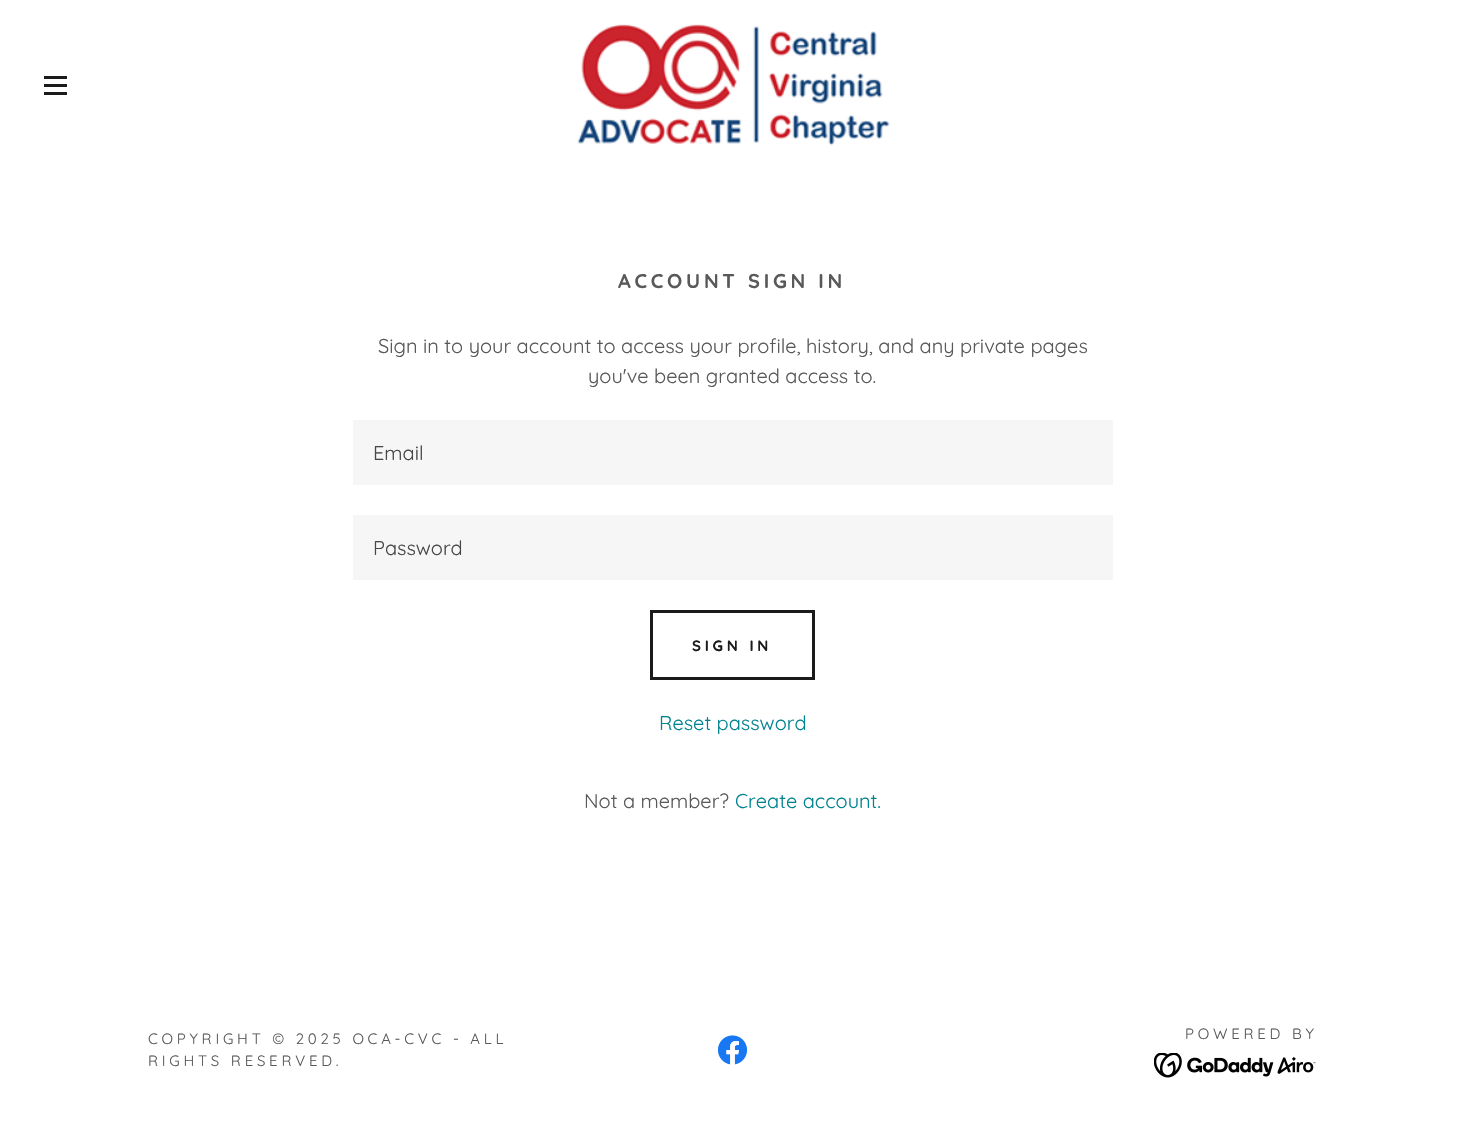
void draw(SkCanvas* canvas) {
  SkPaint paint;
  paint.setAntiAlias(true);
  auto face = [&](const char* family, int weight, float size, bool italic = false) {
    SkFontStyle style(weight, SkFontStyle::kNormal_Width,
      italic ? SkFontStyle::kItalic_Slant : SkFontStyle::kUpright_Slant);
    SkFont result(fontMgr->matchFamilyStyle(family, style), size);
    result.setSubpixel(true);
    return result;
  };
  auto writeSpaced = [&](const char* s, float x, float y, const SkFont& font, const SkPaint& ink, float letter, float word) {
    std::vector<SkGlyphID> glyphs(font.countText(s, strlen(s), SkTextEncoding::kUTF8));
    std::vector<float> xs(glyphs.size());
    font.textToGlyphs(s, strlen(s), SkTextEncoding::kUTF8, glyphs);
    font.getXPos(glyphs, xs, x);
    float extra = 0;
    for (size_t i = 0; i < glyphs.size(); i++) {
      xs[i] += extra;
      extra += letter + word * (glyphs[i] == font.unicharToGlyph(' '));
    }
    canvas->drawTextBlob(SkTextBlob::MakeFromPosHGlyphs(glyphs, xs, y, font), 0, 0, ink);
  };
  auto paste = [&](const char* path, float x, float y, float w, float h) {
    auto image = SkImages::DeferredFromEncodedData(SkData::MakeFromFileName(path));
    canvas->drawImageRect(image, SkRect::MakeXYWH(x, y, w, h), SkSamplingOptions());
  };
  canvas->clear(0xffffffff);
  {
    const struct { float x, y, w, h; SkColor color; } items[] = {
      {44, 76, 23, 3, 0xff1b1b1b},
      {44, 84, 23, 3, 0xff1b1b1b},
      {44, 92, 23, 3, 0xff1b1b1b},
    };
    for (auto [x, y, w, h, color] : items) {
      paint.setColor(color);
      canvas->drawRect(SkRect::MakeXYWH(x, y, w, h), paint);
    }
  }
  paste("img/1.png", 577, 24, 313, 122);
  paint.setColor(0xfff6f6f6);
  canvas->drawRect(SkRect::MakeXYWH(353, 420, 760, 65), paint);
  canvas->drawRect(SkRect::MakeXYWH(353, 515, 760, 65), paint);
  paint.setStroke(true);
  paint.setStrokeWidth(3);
  paint.setColor(0xff1b1b1b);
  canvas->drawRect(SkRect::MakeXYWH(651.5f, 611.5f, 162, 67), paint);
  paste("img/2.png", 717, 1035, 31, 30);
  paste("img/3.png", 1154, 1053, 162, 25);
  auto f0 = face("Quicksand", 700, 20);
  paint.setStroke(false);
  paint.setColor(0xff595959);
  writeSpaced("ACCOUNT SIGN IN", 618, 288, f0, paint, 3.75f, 0);
  auto f1 = face("Quicksand", 400, 20);
  canvas->drawString("Sign in to your account to access your profile, history, and any private pages", 378, 353, f1, paint);
  canvas->drawString("you've been granted access to.", 588, 383, f1, paint);
  paint.setColor(0xff474747);
  canvas->drawString("Email", 373, 460, f1, paint);
  canvas->drawString("Password", 373, 555, f1, paint);
  auto f2 = face("Quicksand", 700, 15);
  paint.setColor(0xff1b1b1b);
  writeSpaced("SIGN IN", 692, 651, f2, paint, 3.75f, 0);
  paint.setColor(0xff008390);
  canvas->drawString("Reset password", 659, 730, f1, paint);
  paint.setColor(0xff595959);
  canvas->drawString("Not a member?", 584, 808, f1, paint);
  paint.setColor(0xff008390);
  canvas->drawString("Create account.", 735, 808, f1, paint);
  auto f3 = face("Quicksand", 400, 15);
  paint.setColor(0xff595959);
  {
    const struct { const char* s; float x, y; } items[] = {
      {"COPYRIGHT © 2025 OCA-CVC - ALL", 148, 1044},
      {"RIGHTS RESERVED.", 148, 1066},
      {"POWERED BY", 1185, 1039},
    };
    for (auto [s, x, y] : items) {
      writeSpaced(s, x, y, f3, paint, 3.75f, 0);
    }
  }
}
